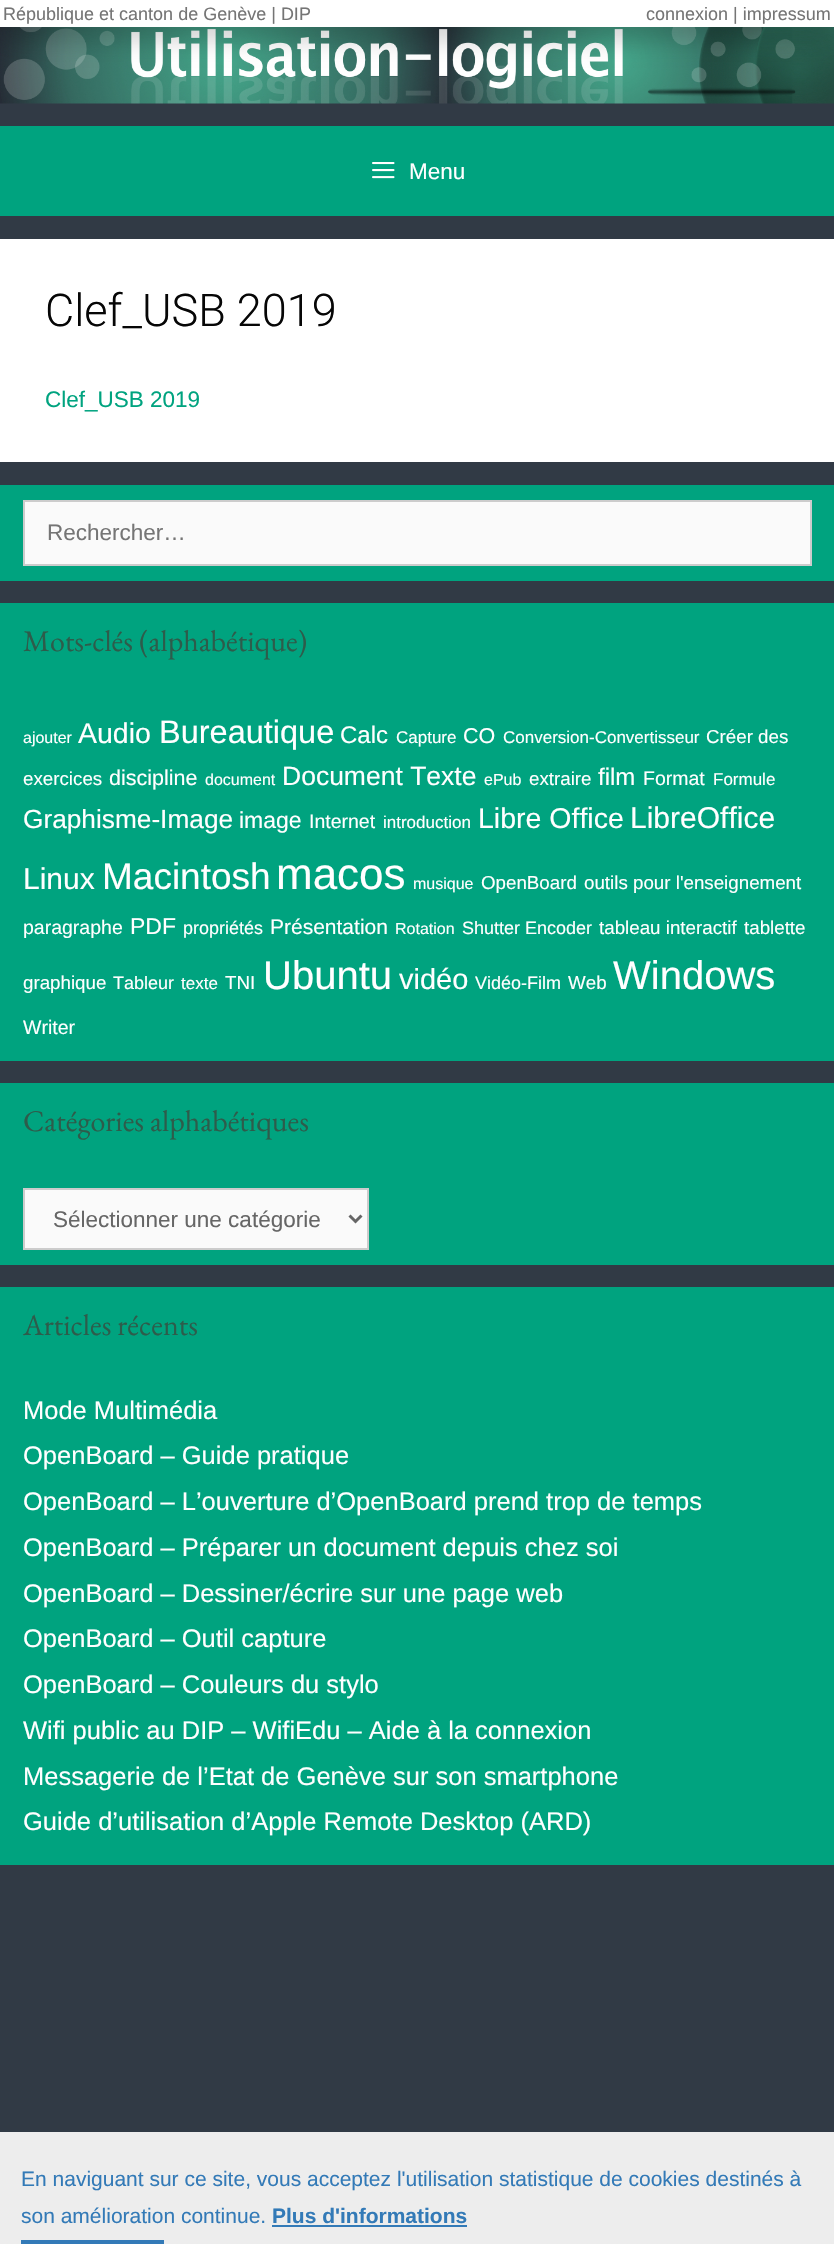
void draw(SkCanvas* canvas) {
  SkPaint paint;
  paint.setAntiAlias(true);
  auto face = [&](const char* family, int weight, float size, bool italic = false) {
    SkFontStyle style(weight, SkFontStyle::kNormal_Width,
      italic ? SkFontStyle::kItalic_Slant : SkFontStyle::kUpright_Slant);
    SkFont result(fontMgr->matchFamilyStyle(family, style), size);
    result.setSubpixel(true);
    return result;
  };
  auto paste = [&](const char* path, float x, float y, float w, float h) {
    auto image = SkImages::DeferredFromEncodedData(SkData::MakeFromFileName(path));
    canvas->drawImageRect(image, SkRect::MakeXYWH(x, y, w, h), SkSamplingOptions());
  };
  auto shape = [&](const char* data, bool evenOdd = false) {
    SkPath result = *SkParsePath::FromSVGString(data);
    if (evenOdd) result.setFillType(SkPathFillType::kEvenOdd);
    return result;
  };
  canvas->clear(0xff313a45);
  paste("img/1.png", 0, 27, 834, 77);
  paint.setColor(0x33000000);
  paint.setMaskFilter(SkMaskFilter::MakeBlur(kNormal_SkBlurStyle, 12));
  canvas->drawRect(SkRect::MakeXYWH(0, 12, 834, 27), paint);
  paint.setMaskFilter(nullptr);
  paint.setColor(0xffffffff);
  canvas->drawRect(SkRect::MakeXYWH(0, 0, 834, 27), paint);
  paint.setColor(0xff00a37f);
  canvas->drawRect(SkRect::MakeXYWH(0, 126, 834, 90), paint);
  paste("img/2.png", 372, 162, 23, 17);
  paint.setColor(0xffffffff);
  canvas->drawRect(SkRect::MakeXYWH(0, 239, 834, 223), paint);
  paint.setColor(0xff00a37f);
  canvas->drawRect(SkRect::MakeXYWH(0, 485, 834, 96), paint);
  paint.setColor(0xfffafafa);
  canvas->drawRect(SkRect::MakeXYWH(24, 501, 787, 64), paint);
  paint.setStroke(true);
  paint.setStrokeWidth(2);
  paint.setColor(0xffcccccc);
  canvas->drawRect(SkRect::MakeXYWH(24, 501, 787, 64), paint);
  paint.setStroke(false);
  paint.setColor(0xff00a37f);
  canvas->drawRect(SkRect::MakeXYWH(0, 603, 834, 458), paint);
  canvas->drawRect(SkRect::MakeXYWH(0, 1083, 834, 182), paint);
  paint.setColor(0xfffafafa);
  canvas->drawRect(SkRect::MakeXYWH(24, 1189, 344, 60), paint);
  paint.setStroke(true);
  paint.setColor(0xffcccccc);
  canvas->drawRect(SkRect::MakeXYWH(24, 1189, 344, 60), paint);
  paint.setStrokeWidth(3);
  paint.setColor(0xff666666);
  canvas->drawPath(shape("M349.5 1215.5L355.5 1221.5L361.5 1215.5"), paint);
  paint.setStroke(false);
  {
    const struct { float x, y, w, h; SkColor color; } items[] = {
      {0, 1287, 834, 578, 0xff00a37f},
      {0, 2132, 834, 112, 0xffededed},
      {272, 2225, 195, 2, 0xff337ab7},
      {21, 2240, 143, 4, 0xff337ab7},
    };
    for (auto [x, y, w, h, color] : items) {
      paint.setColor(color);
      canvas->drawRect(SkRect::MakeXYWH(x, y, w, h), paint);
    }
  }
  auto f0 = face("Liberation Sans", 400, 18);
  paint.setColor(0xff757575);
  canvas->drawString("République et canton de Genève | DIP", 3, 20, f0, paint);
  canvas->drawString("connexion | impressum", 646, 20, f0, paint);
  auto f1 = face("Liberation Sans", 400, 22.5f);
  paint.setColor(0xffffffff);
  canvas->drawString("Menu", 409, 179, f1, paint);
  auto f2 = face("Roboto", 300, 45);
  paint.setColor(0xff060606);
  canvas->drawString("Clef_USB 2019", 45, 326, f2, paint);
  paint.setColor(0xff00a37f);
  canvas->drawString("Clef_USB 2019", 45, 407, f1, paint);
  paint.setColor(0xff757575);
  canvas->drawString("Rechercher…", 47, 540, f1, paint);
  auto f3 = face("EB Garamond", 400, 30);
  paint.setColor(0xff2d5c4b);
  canvas->drawString("Mots-clés (alphabétique)", 23, 651, f3, paint);
  auto f4 = face("Liberation Sans", 400, 16);
  paint.setColor(0xffffffff);
  canvas->drawString("ajouter", 23, 743, f4, paint);
  auto f5 = face("Liberation Sans", 400, 28.5f);
  canvas->drawString("Audio", 78, 743, f5, paint);
  auto f6 = face("Liberation Sans", 400, 32.5f);
  canvas->drawString("Bureautique", 159, 743, f6, paint);
  auto f7 = face("Liberation Sans", 400, 24);
  canvas->drawString("Calc", 340, 743, f7, paint);
  auto f8 = face("Liberation Sans", 400, 17);
  canvas->drawString("Capture", 396, 743, f8, paint);
  auto f9 = face("Liberation Sans", 400, 21.5f);
  canvas->drawString("CO", 463, 743, f9, paint);
  canvas->drawString("Conversion-Convertisseur", 503, 743, f8, paint);
  auto f10 = face("Liberation Sans", 400, 18.75f);
  canvas->drawString("Créer des", 706, 743, f10, paint);
  canvas->drawString("exercices", 23, 785, f10, paint);
  canvas->drawString("discipline", 109, 785, f9, paint);
  canvas->drawString("document", 205, 785, f4, paint);
  auto f11 = face("Liberation Sans", 400, 26.5f);
  canvas->drawString("Document Texte", 282, 785, f11, paint);
  canvas->drawString("ePub", 484, 785, f4, paint);
  canvas->drawString("extraire", 529, 785, f10, paint);
  canvas->drawString("film", 598, 785, f7, paint);
  auto f12 = face("Liberation Sans", 400, 19.5f);
  canvas->drawString("Format", 643, 785, f12, paint);
  canvas->drawString("Formule", 713, 785, f8, paint);
  auto f13 = face("Liberation Sans", 400, 26.25f);
  canvas->drawString("Graphisme-Image", 23, 828, f13, paint);
  auto f14 = face("Liberation Sans", 400, 23);
  canvas->drawString("image", 239, 828, f14, paint);
  canvas->drawString("Internet", 309, 828, f12, paint);
  canvas->drawString("introduction", 383, 828, f8, paint);
  canvas->drawString("Libre Office", 478, 828, f5, paint);
  auto f15 = face("Liberation Sans", 400, 30);
  canvas->drawString("LibreOffice", 630, 828, f15, paint);
  canvas->drawString("Linux", 23, 889, f15, paint);
  auto f16 = face("Liberation Sans", 400, 37);
  canvas->drawString("Macintosh", 102, 889, f16, paint);
  auto f17 = face("Liberation Sans", 400, 44);
  canvas->drawString("macos", 276, 889, f17, paint);
  canvas->drawString("musique", 413, 889, f4, paint);
  canvas->drawString("OpenBoard", 481, 889, f10, paint);
  canvas->drawString("outils pour l'enseignement", 584, 889, f10, paint);
  canvas->drawString("paragraphe", 23, 934, f12, paint);
  canvas->drawString("PDF", 130, 934, f14, paint);
  canvas->drawString("propriétés", 183, 934, f0, paint);
  auto f18 = face("Liberation Sans", 400, 21);
  canvas->drawString("Présentation", 270, 934, f18, paint);
  canvas->drawString("Rotation", 395, 934, f4, paint);
  canvas->drawString("Shutter Encoder", 462, 934, f0, paint);
  {
    const struct { const char* s; float x, y; } items[] = {
      {"tableau interactif", 599, 934},
      {"tablette", 744, 934},
      {"graphique", 23, 989},
    };
    for (auto [s, x, y] : items) {
      canvas->drawString(s, x, y, f10, paint);
    }
  }
  canvas->drawString("Tableur", 113, 989, f0, paint);
  canvas->drawString("texte", 181, 989, f8, paint);
  canvas->drawString("TNI", 225, 989, f10, paint);
  auto f19 = face("Liberation Sans", 400, 40);
  canvas->drawString("Ubuntu", 263, 989, f19, paint);
  auto f20 = face("Liberation Sans", 400, 29);
  canvas->drawString("vidéo", 399, 989, f20, paint);
  canvas->drawString("Vidéo-Film", 475, 989, f0, paint);
  canvas->drawString("Web", 568, 989, f10, paint);
  canvas->drawString("Windows", 613, 989, f19, paint);
  canvas->drawString("Writer", 23, 1034, f12, paint);
  paint.setColor(0xff2d5c4b);
  canvas->drawString("Catégories alphabétiques", 23, 1131, f3, paint);
  paint.setColor(0xff666666);
  canvas->drawString("Sélectionner une catégorie", 53, 1227, f1, paint);
  paint.setColor(0xff2d5c4b);
  canvas->drawString("Articles récents", 23, 1335, f3, paint);
  auto f21 = face("Liberation Sans", 400, 25.5f);
  paint.setColor(0xffffffff);
  {
    const struct { const char* s; float x, y; } items[] = {
      {"Mode Multimédia", 23, 1419},
      {"OpenBoard – Guide pratique", 23, 1464},
      {"OpenBoard – L’ouverture d’OpenBoard prend trop de temps", 23, 1510},
      {"OpenBoard – Préparer un document depuis chez soi", 23, 1556},
      {"OpenBoard – Dessiner/écrire sur une page web", 23, 1602},
      {"OpenBoard – Outil capture", 23, 1647},
      {"OpenBoard – Couleurs du stylo", 23, 1693},
      {"Wifi public au DIP – WifiEdu – Aide à la connexion", 23, 1739},
      {"Messagerie de l’Etat de Genève sur son smartphone", 23, 1785},
      {"Guide d’utilisation d’Apple Remote Desktop (ARD)", 23, 1830},
    };
    for (auto [s, x, y] : items) {
      canvas->drawString(s, x, y, f21, paint);
    }
  }
  paint.setColor(0xff337ab7);
  canvas->drawString("En naviguant sur ce site, vous acceptez l'utilisation statistique de cookies destinés à", 21, 2186, f18, paint);
  canvas->drawString("son amélioration continue.", 21, 2223, f18, paint);
  auto f22 = face("Liberation Sans", 700, 21);
  canvas->drawString("Plus d'informations", 272, 2223, f22, paint);
}
